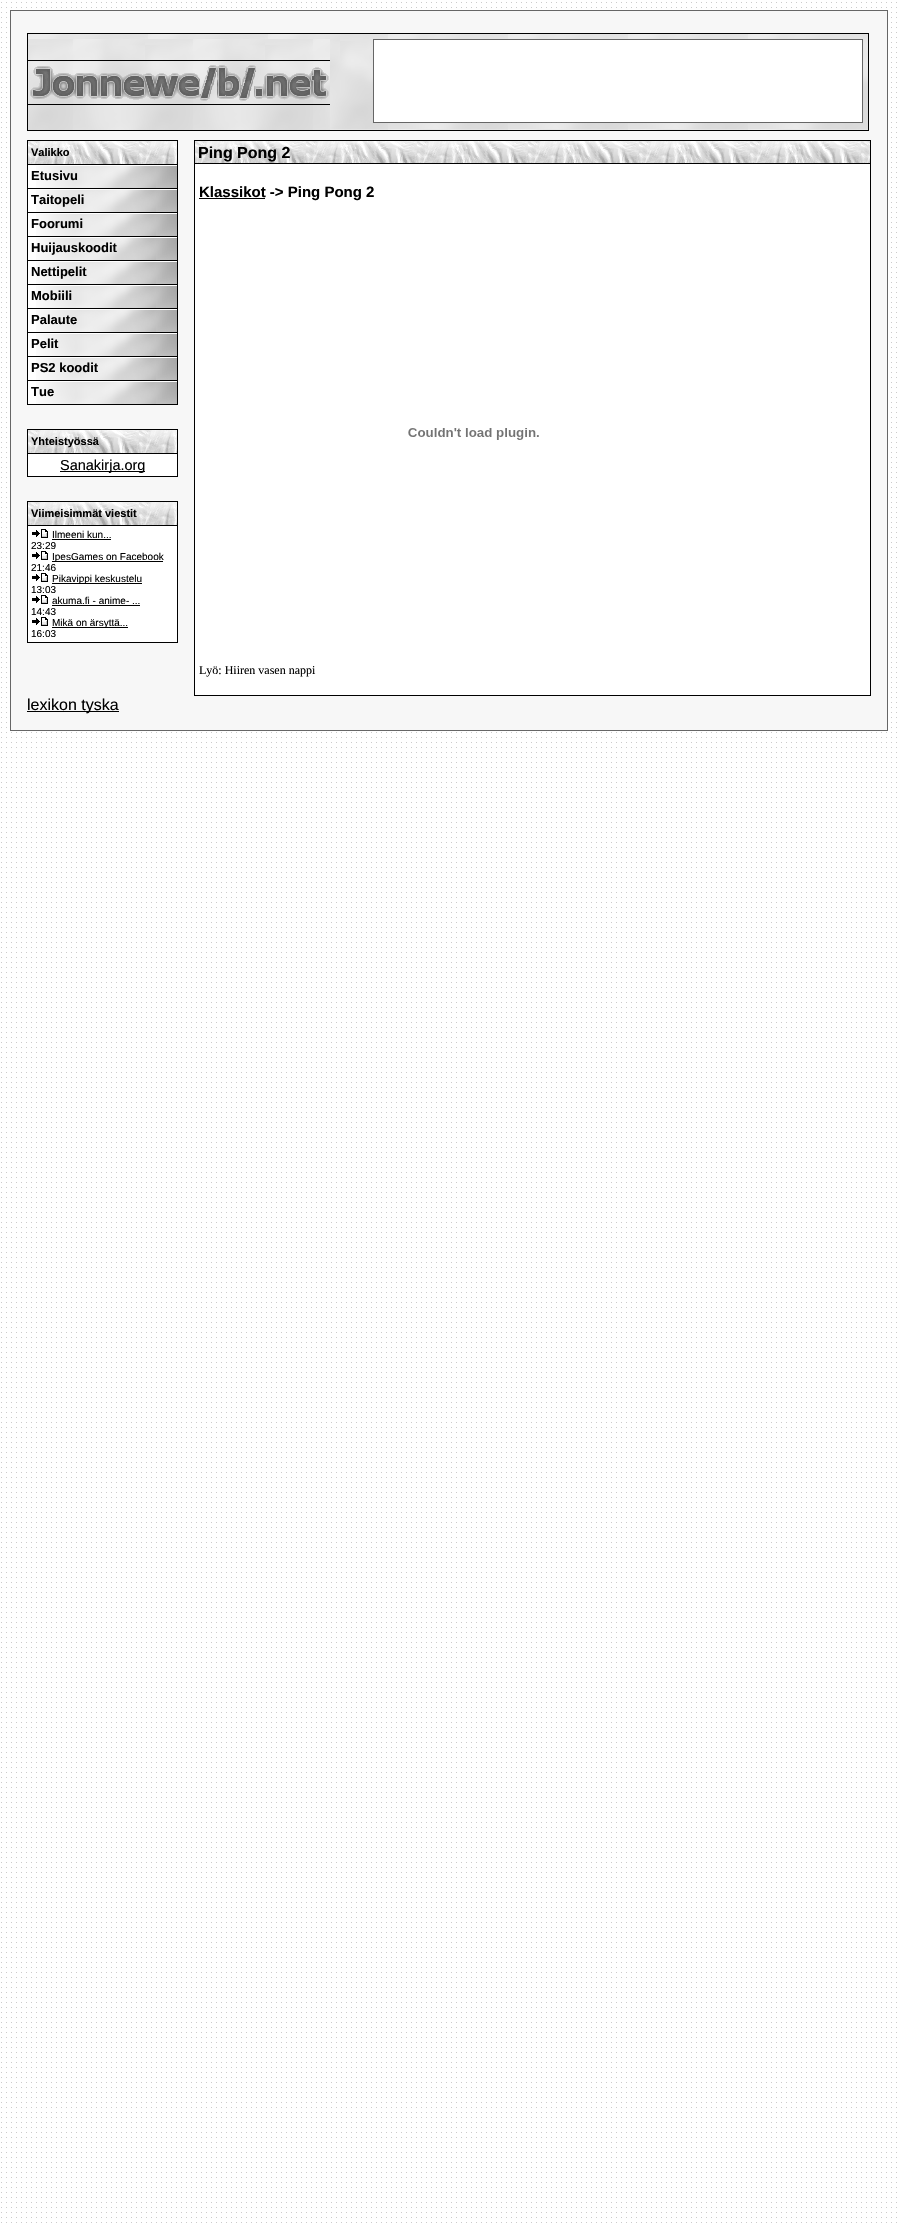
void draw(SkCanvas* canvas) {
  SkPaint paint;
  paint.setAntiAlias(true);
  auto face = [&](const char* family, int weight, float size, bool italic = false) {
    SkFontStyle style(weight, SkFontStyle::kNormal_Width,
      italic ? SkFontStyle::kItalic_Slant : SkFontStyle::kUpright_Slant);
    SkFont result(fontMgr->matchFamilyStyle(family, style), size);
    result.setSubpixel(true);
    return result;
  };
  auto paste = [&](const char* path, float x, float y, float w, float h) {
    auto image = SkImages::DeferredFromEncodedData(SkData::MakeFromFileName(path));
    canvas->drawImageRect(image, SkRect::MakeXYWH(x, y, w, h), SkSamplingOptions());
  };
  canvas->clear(0xffffffff);
  paste("img/1.png", 1, 721, 896, 1502);
  paste("img/2.png", 1, 2, 896, 716);
  paint.setColor(0xfff7f7f7);
  canvas->drawRect(SkRect::MakeXYWH(10.5f, 10.5f, 877, 720), paint);
  paint.setStroke(true);
  paint.setStrokeWidth(1);
  paint.setColor(0xff666666);
  canvas->drawRect(SkRect::MakeXYWH(10.5f, 10.5f, 877, 720), paint);
  paste("img/3.png", 28, 34, 840, 96);
  paint.setColor(0xff000000);
  canvas->drawRect(SkRect::MakeXYWH(27.5f, 33.5f, 841, 97), paint);
  paste("img/4.png", 28, 39, 302, 91);
  paint.setStroke(false);
  paint.setColor(0xffffffff);
  canvas->drawRect(SkRect::MakeXYWH(373.5f, 39.5f, 489, 83), paint);
  paint.setStroke(true);
  paint.setColor(0xff666666);
  canvas->drawRect(SkRect::MakeXYWH(373.5f, 39.5f, 489, 83), paint);
  paste("img/5.png", 28, 141, 149, 23);
  paint.setStroke(false);
  {
    const struct { float x, y, w, h; SkColor color; } items[] = {
      {27, 140, 151, 1, 0xff000000},
      {177, 140, 1, 24, 0xff000000},
      {27, 140, 1, 24, 0xff000000},
      {28, 165, 149, 239, 0xffffffff},
      {27, 164, 151, 1, 0xff000000},
      {27, 164, 1, 241, 0xff000000},
    };
    for (auto [x, y, w, h, color] : items) {
      paint.setColor(color);
      canvas->drawRect(SkRect::MakeXYWH(x, y, w, h), paint);
    }
  }
  paste("img/6.png", 36, 166, 141, 22);
  canvas->drawRect(SkRect::MakeXYWH(177, 165, 1, 240), paint);
  canvas->drawRect(SkRect::MakeXYWH(28, 188, 150, 1), paint);
  paste("img/6.png", 36, 190, 141, 22);
  canvas->drawRect(SkRect::MakeXYWH(28, 212, 150, 1), paint);
  paste("img/6.png", 36, 214, 141, 22);
  canvas->drawRect(SkRect::MakeXYWH(28, 236, 150, 1), paint);
  paste("img/6.png", 36, 238, 141, 22);
  canvas->drawRect(SkRect::MakeXYWH(28, 260, 150, 1), paint);
  paste("img/6.png", 36, 262, 141, 22);
  canvas->drawRect(SkRect::MakeXYWH(28, 284, 150, 1), paint);
  paste("img/6.png", 36, 286, 141, 22);
  canvas->drawRect(SkRect::MakeXYWH(28, 308, 150, 1), paint);
  paste("img/6.png", 36, 310, 141, 22);
  canvas->drawRect(SkRect::MakeXYWH(28, 332, 150, 1), paint);
  paste("img/6.png", 36, 334, 141, 22);
  canvas->drawRect(SkRect::MakeXYWH(28, 356, 150, 1), paint);
  paste("img/6.png", 36, 358, 141, 22);
  canvas->drawRect(SkRect::MakeXYWH(28, 380, 150, 1), paint);
  paste("img/6.png", 36, 382, 141, 22);
  canvas->drawRect(SkRect::MakeXYWH(28, 404, 150, 1), paint);
  paste("img/5.png", 28, 430, 149, 23);
  {
    const struct { float x, y, w, h; SkColor color; } items[] = {
      {27, 429, 151, 1, 0xff000000},
      {177, 429, 1, 24, 0xff000000},
      {27, 429, 1, 24, 0xff000000},
    };
    for (auto [x, y, w, h, color] : items) {
      paint.setColor(color);
      canvas->drawRect(SkRect::MakeXYWH(x, y, w, h), paint);
    }
  }
  paint.setColor(0xffffffff);
  canvas->drawRect(SkRect::MakeXYWH(27.5f, 453.5f, 150, 23), paint);
  paint.setStroke(true);
  paint.setColor(0xff000000);
  canvas->drawRect(SkRect::MakeXYWH(27.5f, 453.5f, 150, 23), paint);
  paint.setStroke(false);
  canvas->drawRect(SkRect::MakeXYWH(60, 471, 85, 1), paint);
  paste("img/5.png", 28, 502, 149, 23);
  {
    const struct { float x, y, w, h; SkColor color; } items[] = {
      {27, 501, 151, 1, 0xff000000},
      {177, 501, 1, 24, 0xff000000},
      {27, 501, 1, 24, 0xff000000},
    };
    for (auto [x, y, w, h, color] : items) {
      paint.setColor(color);
      canvas->drawRect(SkRect::MakeXYWH(x, y, w, h), paint);
    }
  }
  paint.setColor(0xffffffff);
  canvas->drawRect(SkRect::MakeXYWH(27.5f, 525.5f, 150, 117), paint);
  paint.setStroke(true);
  paint.setColor(0xff000000);
  canvas->drawRect(SkRect::MakeXYWH(27.5f, 525.5f, 150, 117), paint);
  paste("img/7.png", 32, 529, 16, 9);
  paint.setStroke(false);
  canvas->drawRect(SkRect::MakeXYWH(52, 539, 59, 1), paint);
  paste("img/7.png", 32, 551, 16, 9);
  canvas->drawRect(SkRect::MakeXYWH(52, 561, 111, 1), paint);
  paste("img/7.png", 32, 573, 16, 9);
  canvas->drawRect(SkRect::MakeXYWH(52, 583, 90, 1), paint);
  paste("img/7.png", 32, 595, 16, 9);
  canvas->drawRect(SkRect::MakeXYWH(52, 605, 88, 1), paint);
  paste("img/7.png", 32, 617, 16, 9);
  canvas->drawRect(SkRect::MakeXYWH(52, 627, 76, 1), paint);
  paste("img/8.png", 195, 141, 675, 22);
  {
    const struct { float x, y, w, h; SkColor color; } items[] = {
      {194, 140, 677, 1, 0xff000000},
      {870, 140, 1, 23, 0xff000000},
      {194, 140, 1, 23, 0xff000000},
    };
    for (auto [x, y, w, h, color] : items) {
      paint.setColor(color);
      canvas->drawRect(SkRect::MakeXYWH(x, y, w, h), paint);
    }
  }
  paint.setColor(0xffffffff);
  canvas->drawRect(SkRect::MakeXYWH(194.5f, 163.5f, 676, 532), paint);
  paint.setStroke(true);
  paint.setColor(0xff000000);
  canvas->drawRect(SkRect::MakeXYWH(194.5f, 163.5f, 676, 532), paint);
  paint.setStroke(false);
  canvas->drawRect(SkRect::MakeXYWH(199, 198, 66, 1), paint);
  paste("img/9.png", 408, 428, 131, 12);
  canvas->drawRect(SkRect::MakeXYWH(27, 711, 92, 1), paint);
  auto f0 = face("Liberation Sans", 700, 11);
  canvas->drawString("Valikko", 31, 156, f0, paint);
  auto f1 = face("Liberation Sans", 700, 13);
  {
    const struct { const char* s; float x, y; } items[] = {
      {"Etusivu", 31, 180},
      {"Taitopeli", 31, 204},
      {"Foorumi", 31, 228},
      {"Huijauskoodit", 31, 252},
      {"Nettipelit", 31, 276},
      {"Mobiili", 31, 300},
      {"Palaute", 31, 324},
      {"Pelit", 31, 348},
      {"PS2 koodit", 31, 372},
      {"Tue", 31, 396},
    };
    for (auto [s, x, y] : items) {
      canvas->drawString(s, x, y, f1, paint);
    }
  }
  canvas->drawString("Yhteistyössä", 31, 445, f0, paint);
  auto f2 = face("Liberation Sans", 400, 14.5f);
  canvas->drawString("Sanakirja.org", 60, 470, f2, paint);
  canvas->drawString("Viimeisimmät viestit", 31, 517, f0, paint);
  auto f3 = face("Liberation Sans", 400, 10);
  {
    const struct { const char* s; float x, y; } items[] = {
      {"Ilmeeni kun...", 52, 538},
      {"23:29", 31, 549},
      {"IpesGames on Facebook", 52, 560},
      {"21:46", 31, 571},
      {"Pikavippi keskustelu", 52, 582},
      {"13:03", 31, 593},
      {"akuma.fi - anime- ...", 52, 604},
      {"14:43", 31, 615},
      {"Mikä on ärsyttä...", 52, 626},
      {"16:03", 31, 637},
    };
    for (auto [s, x, y] : items) {
      canvas->drawString(s, x, y, f3, paint);
    }
  }
  auto f4 = face("Liberation Sans", 700, 16);
  canvas->drawString("Ping Pong 2", 198, 158, f4, paint);
  auto f5 = face("Liberation Sans", 700, 15);
  canvas->drawString("Klassikot -> Ping Pong 2", 199, 197, f5, paint);
  auto f6 = face("Liberation Serif", 400, 12);
  canvas->drawString("Lyö: Hiiren vasen nappi", 199, 674, f6, paint);
  auto f7 = face("Liberation Sans", 400, 16);
  canvas->drawString("lexikon tyska", 27, 710, f7, paint);
}
